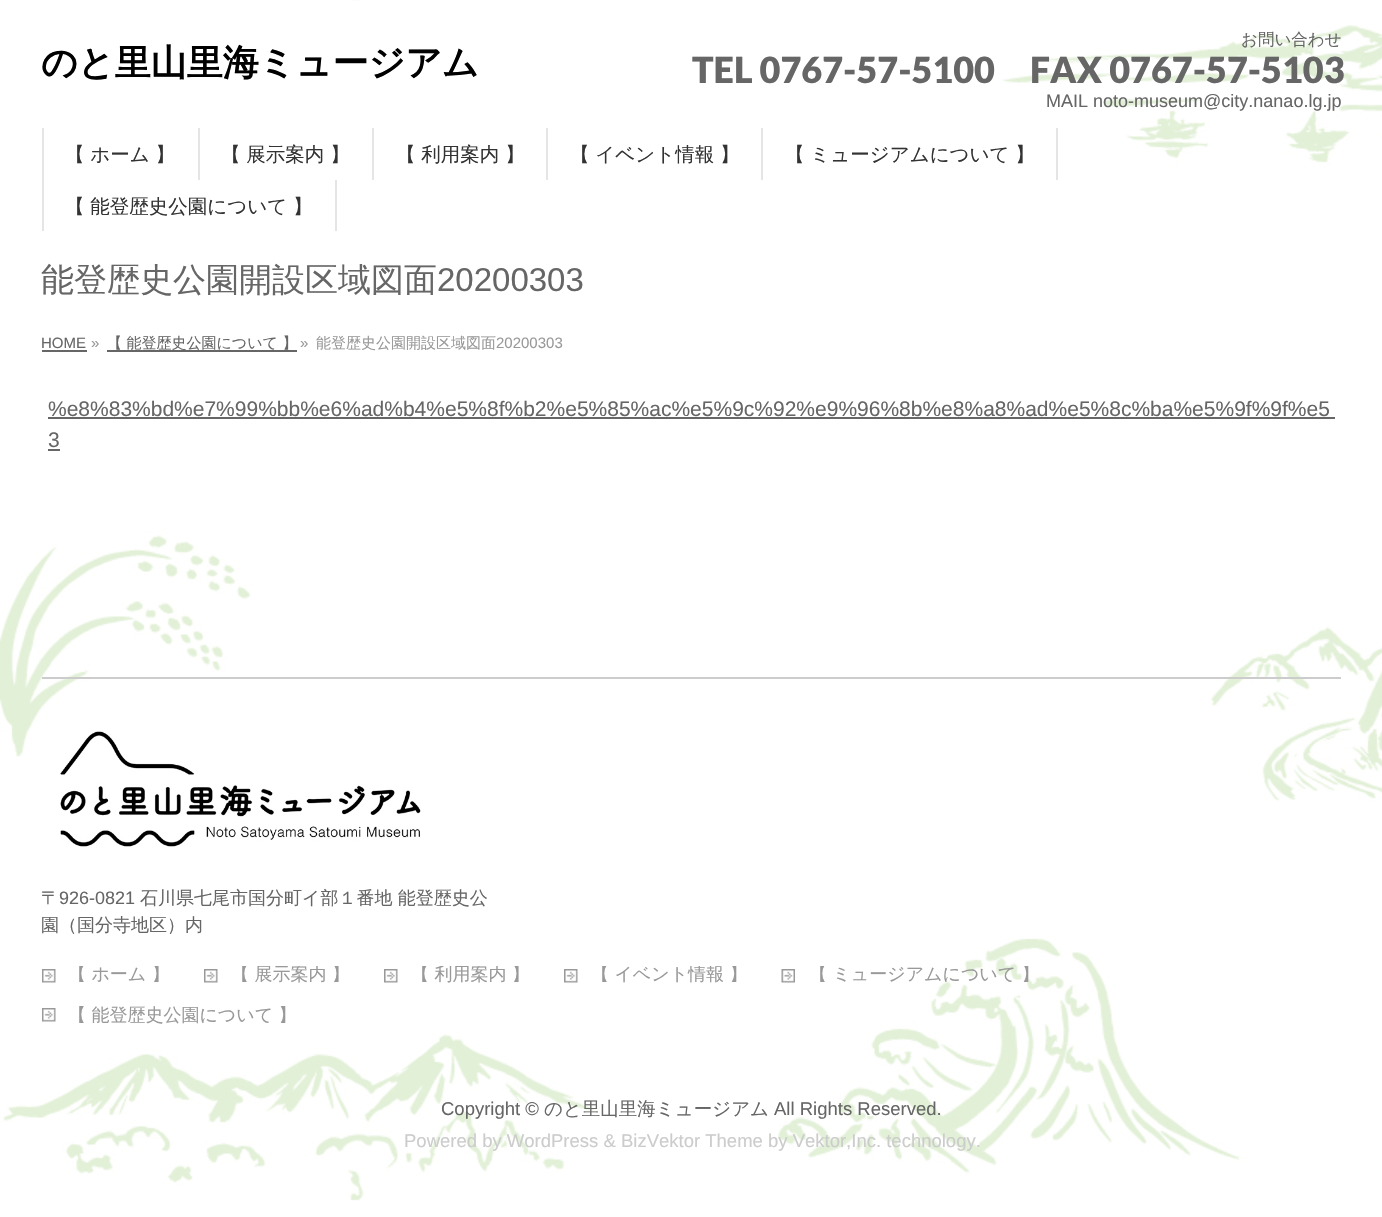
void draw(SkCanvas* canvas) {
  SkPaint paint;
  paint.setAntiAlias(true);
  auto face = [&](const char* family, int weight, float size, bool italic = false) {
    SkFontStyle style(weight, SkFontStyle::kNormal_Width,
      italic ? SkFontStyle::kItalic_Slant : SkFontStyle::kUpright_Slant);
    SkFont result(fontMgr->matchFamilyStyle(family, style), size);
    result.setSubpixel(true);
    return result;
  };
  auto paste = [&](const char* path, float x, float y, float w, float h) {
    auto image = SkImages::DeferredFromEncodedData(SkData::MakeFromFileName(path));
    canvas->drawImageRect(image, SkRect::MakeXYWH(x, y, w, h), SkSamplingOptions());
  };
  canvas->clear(0xffffffff);
  paste("img/1.png", 0, 0, 1382, 1201);
  {
    const struct { float x, y, w, h; SkColor color; } items[] = {
      {42, 128, 2, 103, 0xffe5e5e5},
      {198, 128, 2, 52, 0xffe5e5e5},
      {372, 128, 2, 52, 0xffe5e5e5},
      {546, 128, 2, 52, 0xffe5e5e5},
      {761, 128, 2, 52, 0xffe5e5e5},
      {1056, 128, 2, 52, 0xffe5e5e5},
      {335, 180, 2, 51, 0xffe5e5e5},
      {42, 350, 45, 2, 0xff666666},
      {107, 350, 190, 2, 0xff666666},
      {48, 417, 1287, 2, 0xff666666},
      {48, 449, 12, 2, 0xff666666},
      {42, 677, 1299, 2, 0xffcccccc},
    };
    for (auto [x, y, w, h, color] : items) {
      paint.setColor(color);
      canvas->drawRect(SkRect::MakeXYWH(x, y, w, h), paint);
    }
  }
  paste("img/2.png", 60, 731, 361, 116);
  paste("img/3.png", 42, 969, 14, 14);
  paste("img/3.png", 204, 969, 14, 14);
  paste("img/4.png", 384, 969, 14, 14);
  paste("img/4.png", 564, 969, 14, 14);
  paste("img/5.png", 781, 969, 14, 14);
  paste("img/3.png", 42, 1008, 14, 14);
  auto f0 = face("WenQuanYi Zen Hei", 700, 36);
  paint.setColor(0xff000000);
  canvas->drawString("のと里山里海ミュージアム", 41, 75, f0, paint);
  auto f1 = face("WenQuanYi Zen Hei", 500, 16.5f);
  paint.setColor(0xff666666);
  canvas->drawString("お問い合わせ", 1241, 45, f1, paint);
  auto f2 = face("Lato", 900, 36);
  canvas->drawString("TEL 0767-57-5100", 692, 83, f2, paint);
  canvas->drawString("FAX 0767-57-5103", 1030, 83, f2, paint);
  auto f3 = face("Liberation Sans", 400, 18);
  canvas->drawString("MAIL noto-museum@city.nanao.lg.jp", 1046, 107, f3, paint);
  auto f4 = face("WenQuanYi Zen Hei", 500, 19.5f);
  paint.setColor(0xff333333);
  {
    const struct { const char* s; float x, y; } items[] = {
      {"【 ホーム 】", 65, 161},
      {"【 展示案内 】", 221, 161},
      {"【 利用案内 】", 396, 161},
      {"【 イベント情報 】", 570, 161},
      {"【 ミュージアムについて 】", 785, 161},
      {"【 能登歴史公園について 】", 65, 213},
    };
    for (auto [s, x, y] : items) {
      canvas->drawString(s, x, y, f4, paint);
    }
  }
  auto f5 = face("WenQuanYi Zen Hei", 500, 33);
  paint.setColor(0xff666666);
  canvas->drawString("能登歴史公園開設区域図面", 41, 291, f5, paint);
  auto f6 = face("Liberation Sans", 400, 33);
  canvas->drawString("20200303", 437, 291, f6, paint);
  auto f7 = face("Liberation Sans", 400, 15);
  canvas->drawString("HOME", 41, 348, f7, paint);
  paint.setColor(0xff999999);
  canvas->drawString("»", 91, 348, f7, paint);
  auto f8 = face("WenQuanYi Zen Hei", 500, 15);
  paint.setColor(0xff666666);
  canvas->drawString("【 能登歴史公園について 】", 107, 348, f8, paint);
  paint.setColor(0xff999999);
  canvas->drawString("»", 300, 348, f7, paint);
  canvas->drawString("能登歴史公園開設区域図面", 316, 348, f8, paint);
  canvas->drawString("20200303", 496, 348, f7, paint);
  auto f9 = face("Liberation Sans", 400, 21);
  paint.setColor(0xff666666);
  canvas->drawString("%e8%83%bd%e7%99%bb%e6%ad%b4%e5%8f%b2%e5%85%ac%e5%9c%92%e9%96%8b%e8%a8%ad%e5%8c%ba%e5%9f%9f%e5", 48, 416, f9, paint);
  canvas->drawString("3", 48, 447, f9, paint);
  auto f10 = face("WenQuanYi Zen Hei", 500, 18);
  canvas->drawString("〒", 41, 904, f10, paint);
  canvas->drawString("926-0821", 59, 904, f3, paint);
  canvas->drawString("石川県七尾市国分町イ部１番地 能登歴史公", 140, 904, f10, paint);
  canvas->drawString("園（国分寺地区）内", 41, 931, f10, paint);
  canvas->save();
  canvas->clipRect(SkRect::MakeXYWH(42, 966, 158, 26));
  paint.setColor(0xff999999);
  canvas->drawString("【 ホーム 】", 68, 980, f10, paint);
  canvas->restore();
  canvas->save();
  canvas->clipRect(SkRect::MakeXYWH(204, 966, 176, 26));
  canvas->drawString("【 展示案内 】", 231, 980, f10, paint);
  canvas->restore();
  canvas->save();
  canvas->clipRect(SkRect::MakeXYWH(384, 966, 176, 26));
  canvas->drawString("【 利用案内 】", 411, 980, f10, paint);
  canvas->restore();
  canvas->save();
  canvas->clipRect(SkRect::MakeXYWH(564, 966, 213, 26));
  canvas->drawString("【 イベント情報 】", 591, 980, f10, paint);
  canvas->restore();
  canvas->save();
  canvas->clipRect(SkRect::MakeXYWH(782, 966, 288, 26));
  canvas->drawString("【 ミュージアムについて 】", 809, 980, f10, paint);
  canvas->restore();
  canvas->drawString("【 能登歴史公園について 】", 68, 1021, f10, paint);
  auto f11 = face("Liberation Sans", 400, 18.5f);
  paint.setColor(0xff666666);
  canvas->drawString("Copyright ©", 441, 1115, f11, paint);
  auto f12 = face("WenQuanYi Zen Hei", 500, 18.5f);
  canvas->drawString("のと里山里海ミュージアム", 544, 1115, f12, paint);
  canvas->drawString("All Rights Reserved.", 774, 1115, f11, paint);
  paint.setColor(0xffcccccc);
  canvas->drawString("Powered by WordPress & BizVektor Theme by Vektor,Inc. technology.", 404, 1147, f11, paint);
}
